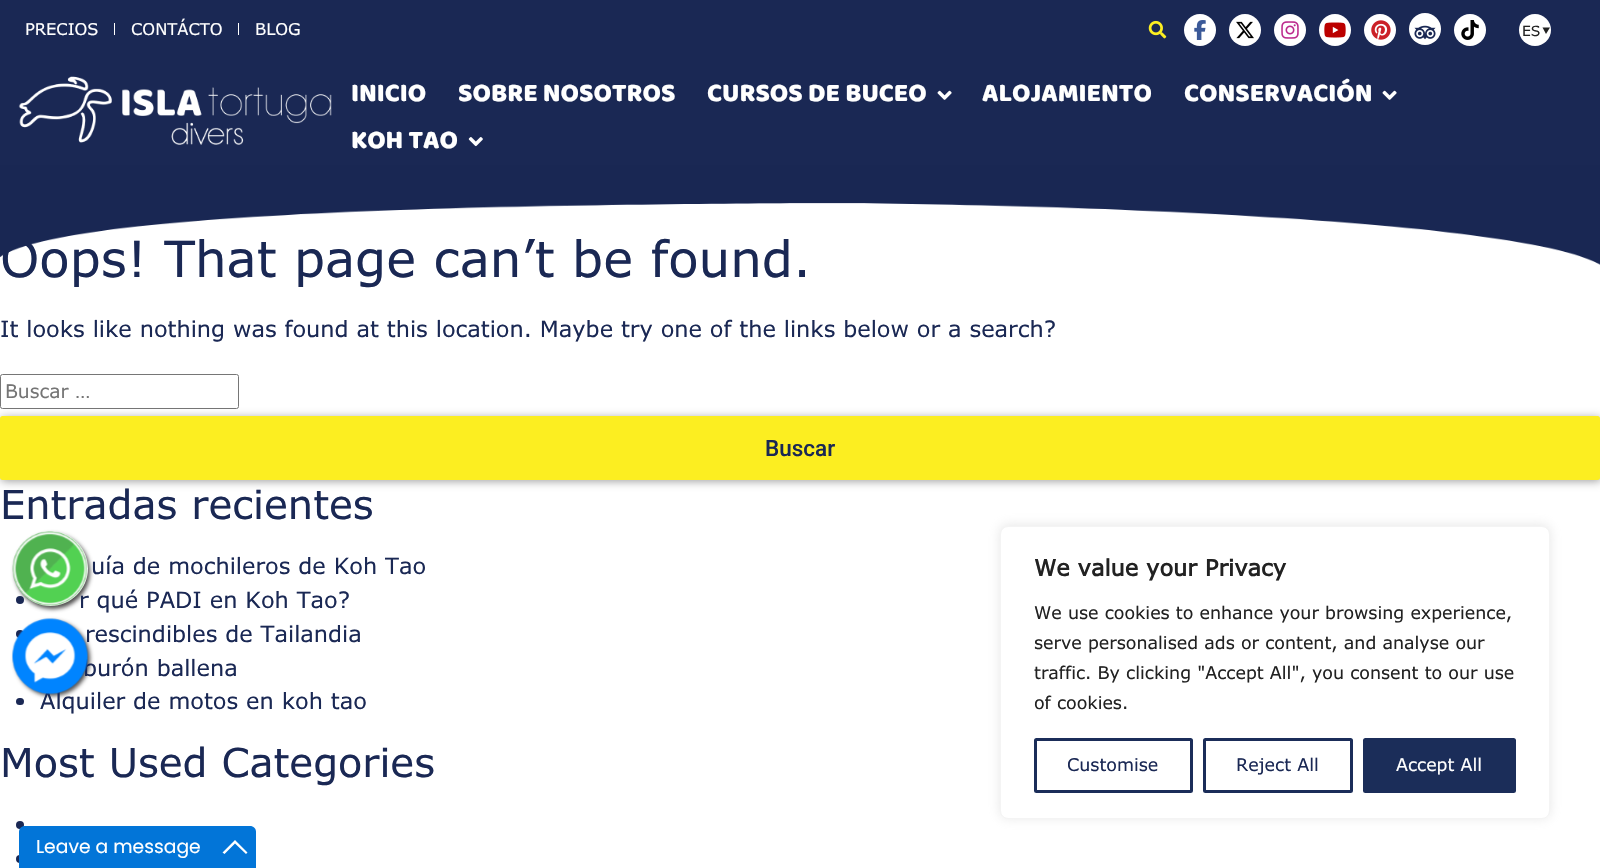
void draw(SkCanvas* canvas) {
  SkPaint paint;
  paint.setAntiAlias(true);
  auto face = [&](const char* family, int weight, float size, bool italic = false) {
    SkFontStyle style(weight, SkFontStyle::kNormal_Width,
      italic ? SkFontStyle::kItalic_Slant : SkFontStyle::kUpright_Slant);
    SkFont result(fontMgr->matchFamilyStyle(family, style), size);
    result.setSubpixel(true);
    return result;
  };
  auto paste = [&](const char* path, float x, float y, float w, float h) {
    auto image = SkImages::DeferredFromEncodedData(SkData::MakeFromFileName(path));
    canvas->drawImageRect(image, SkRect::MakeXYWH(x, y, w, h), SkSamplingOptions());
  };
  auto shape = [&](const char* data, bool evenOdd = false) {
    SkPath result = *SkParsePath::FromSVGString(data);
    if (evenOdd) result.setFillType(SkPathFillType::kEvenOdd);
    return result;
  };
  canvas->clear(0xffffffff);
  {
    const struct { float x, y, w, h; SkColor color; } items[] = {
      {0, 0, 1600, 165, 0xff1a2854},
      {114, 23, 1, 12, 0xffffffff},
      {238, 23, 1, 12, 0xffffffff},
    };
    for (auto [x, y, w, h, color] : items) {
      paint.setColor(color);
      canvas->drawRect(SkRect::MakeXYWH(x, y, w, h), paint);
    }
  }
  paste("img/1.png", 1148, 20, 19, 19);
  canvas->drawCircle(1200, 30, 16, paint);
  paste("img/2.png", 1194, 20, 12, 20);
  canvas->drawCircle(1245, 30, 16, paint);
  paste("img/3.png", 1236, 21, 18, 18);
  canvas->drawCircle(1290, 30, 16, paint);
  paste("img/4.png", 1281, 21, 18, 18);
  canvas->drawCircle(1335, 30, 16, paint);
  paste("img/5.png", 1324, 22, 22, 16);
  canvas->drawCircle(1380, 30, 16, paint);
  paste("img/6.png", 1371, 20, 20, 20);
  canvas->drawCircle(1425, 29, 16, paint);
  paste("img/7.png", 1414, 25, 22, 15);
  canvas->drawCircle(1470, 30, 16, paint);
  paste("img/8.png", 1461, 20, 18, 20);
  canvas->drawCircle(1535, 30, 16, paint);
  paint.setColor(0xff222222);
  canvas->drawPath(shape("M1542.5 27.5H1550L1546 34Z"), paint);
  paste("img/9.png", 18, 76, 314, 69);
  paste("img/10.png", 937, 90, 15, 10);
  paste("img/10.png", 1382, 90, 15, 10);
  paste("img/11.png", 468, 137, 15, 10);
  paint.setStroke(true);
  paint.setStrokeWidth(1);
  paint.setColor(0xff767676);
  canvas->drawRoundRect(SkRect::MakeXYWH(0.5f, 374.5f, 238, 34), 2, 2, paint);
  paint.setStroke(false);
  paint.setColor(0x66000000);
  paint.setMaskFilter(SkMaskFilter::MakeBlur(kNormal_SkBlurStyle, 5));
  canvas->drawRoundRect(SkRect::MakeXYWH(1, 418, 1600, 63), 2.5f, 2.5f, paint);
  paint.setMaskFilter(nullptr);
  paint.setColor(0xfffcee21);
  canvas->drawRoundRect(SkRect::MakeXYWH(0, 416, 1600, 64), 2.5f, 2.5f, paint);
  paint.setColor(0xff1a2854);
  canvas->drawCircle(20, 600, 4, paint);
  canvas->drawCircle(20, 634, 4, paint);
  canvas->drawRoundRect(SkRect::MakeXYWH(16, 698, 8, 7), 3.5f, 3.5f, paint);
  canvas->drawCircle(20, 825, 4, paint);
  canvas->drawCircle(20, 859, 4, paint);
  canvas->save();
  canvas->clipPath(shape("M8 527H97V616H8ZM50.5 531C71 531 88 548 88 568.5C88 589 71 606 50.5 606C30 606 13 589 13 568.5C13 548 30 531 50.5 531Z", true), true);
  paint.setColor(0xff4e4d4d);
  paint.setMaskFilter(SkMaskFilter::MakeBlur(kNormal_SkBlurStyle, 2));
  canvas->drawRoundRect(SkRect::MakeXYWH(15, 534, 75, 75), 37.5f, 37.5f, paint);
  paint.setMaskFilter(nullptr);
  canvas->restore();
  paint.setMaskFilter(SkMaskFilter::MakeBlur(kNormal_SkBlurStyle, 2));
  canvas->drawRoundRect(SkRect::MakeXYWH(15, 621, 75, 75), 37.5f, 37.5f, paint);
  paint.setMaskFilter(nullptr);
  paint.setColor(0x4dacabab);
  paint.setMaskFilter(SkMaskFilter::MakeBlur(kNormal_SkBlurStyle, 6));
  canvas->drawRoundRect(SkRect::MakeXYWH(1000, 525, 550, 293), 8, 8, paint);
  paint.setMaskFilter(nullptr);
  paint.setColor(0xffffffff);
  canvas->drawRoundRect(SkRect::MakeXYWH(1000.5f, 526.5f, 549, 292), 7.5f, 7.5f, paint);
  paint.setStroke(true);
  paint.setColor(0xfff4f4f4);
  canvas->drawRoundRect(SkRect::MakeXYWH(1000.5f, 526.5f, 549, 292), 7.5f, 7.5f, paint);
  paint.setStrokeWidth(3);
  paint.setColor(0xff1b2d59);
  canvas->drawRoundRect(SkRect::MakeXYWH(1035.5f, 739.5f, 156, 52), 1, 1, paint);
  canvas->drawRoundRect(SkRect::MakeXYWH(1204.5f, 739.5f, 147, 52), 1, 1, paint);
  paint.setStroke(false);
  canvas->drawRoundRect(SkRect::MakeXYWH(1364.5f, 739.5f, 150, 52), 1, 1, paint);
  paint.setStroke(true);
  canvas->drawRoundRect(SkRect::MakeXYWH(1364.5f, 739.5f, 150, 52), 1, 1, paint);
  paint.setStroke(false);
  paint.setColor(0xff0275d8);
  canvas->drawPath(shape("M25 826H250C253.5 826 256 828.5 256 832V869H19V832C19 828.5 21.5 826 25 826Z"), paint);
  paint.setColor(0xffffffff);
  canvas->drawPath(shape("M235 840L247.5 852.5L246 854L235 843.5L224.5 854L222.5 852.5Z"), paint);
  auto f0 = face("Verdana", 400, 16.25f);
  {
    const struct { const char* s; float x, y; } items[] = {
      {"PRECIOS", 25, 35},
      {"CONTÁCTO", 131, 35},
      {"BLOG", 255, 35},
    };
    for (auto [s, x, y] : items) {
      canvas->drawString(s, x, y, f0, paint);
    }
  }
  auto f1 = face("Verdana", 400, 14);
  paint.setColor(0xff222222);
  canvas->drawString("ES", 1522, 36, f1, paint);
  auto f2 = face("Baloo", 400, 26.25f);
  paint.setColor(0xffffffff);
  {
    const struct { const char* s; float x, y; } items[] = {
      {"INICIO", 351, 101},
      {"SOBRE NOSOTROS", 458, 101},
      {"CURSOS DE BUCEO", 707, 101},
      {"ALOJAMIENTO", 982, 101},
      {"CONSERVACIÓN", 1184, 101},
      {"KOH TAO", 351, 148},
    };
    for (auto [s, x, y] : items) {
      canvas->drawString(s, x, y, f2, paint);
    }
  }
  auto f3 = face("Verdana", 400, 50);
  paint.setColor(0xff1a2854);
  canvas->drawString("Oops! That page can’t be found.", 0, 277, f3, paint);
  paste("img/12.png", 0, 165, 1600, 100);
  auto f4 = face("Verdana", 400, 22.5f);
  canvas->drawString("It looks like nothing was found at this location. Maybe try one of the links below or a search?", 0, 337, f4, paint);
  auto f5 = face("Verdana", 400, 18.75f);
  paint.setColor(0xff757575);
  canvas->drawString("Buscar …", 5, 398, f5, paint);
  auto f6 = face("Roboto", 500, 22.5f);
  paint.setColor(0xff1a2854);
  canvas->drawString("Buscar", 765, 456, f6, paint);
  auto f7 = face("Verdana", 400, 40);
  canvas->drawString("Entradas recientes", 0, 519, f7, paint);
  {
    const struct { const char* s; float x, y; } items[] = {
      {"uía de mochileros de Koh Tao", 91, 574},
      {"r qué PADI en Koh Tao?", 79, 608},
      {"rescindibles de Tailandia", 85, 642},
      {"burón ballena", 83, 676},
      {"Alquiler de motos en koh tao", 40, 709},
    };
    for (auto [s, x, y] : items) {
      canvas->drawString(s, x, y, f4, paint);
    }
  }
  canvas->drawString("Most Used Categories", 0, 777, f7, paint);
  paste("img/13.png", 12, 531, 76, 75);
  paste("img/14.png", 12, 618, 76, 77);
  auto f8 = face("Verdana", 700, 22.5f);
  paint.setColor(0xff222222);
  canvas->drawString("We value your Privacy", 1034, 576, f8, paint);
  auto f9 = face("Verdana", 400, 17.5f);
  {
    const struct { const char* s; float x, y; } items[] = {
      {"We use cookies to enhance your browsing experience,", 1034, 619},
      {"serve personalised ads or content, and analyse our", 1034, 649},
      {"traffic. By clicking \"Accept All\", you consent to our use", 1034, 679},
      {"of cookies.", 1034, 709},
    };
    for (auto [s, x, y] : items) {
      canvas->drawString(s, x, y, f9, paint);
    }
  }
  paint.setColor(0xff1a2854);
  canvas->drawString("Customise", 1067, 771, f9, paint);
  canvas->drawString("Reject All", 1236, 771, f9, paint);
  paint.setColor(0xffffffff);
  canvas->drawString("Accept All", 1396, 771, f9, paint);
  auto f10 = face("Poppins", 400, 18.75f);
  canvas->drawString("Leave a message", 36, 853, f10, paint);
}
